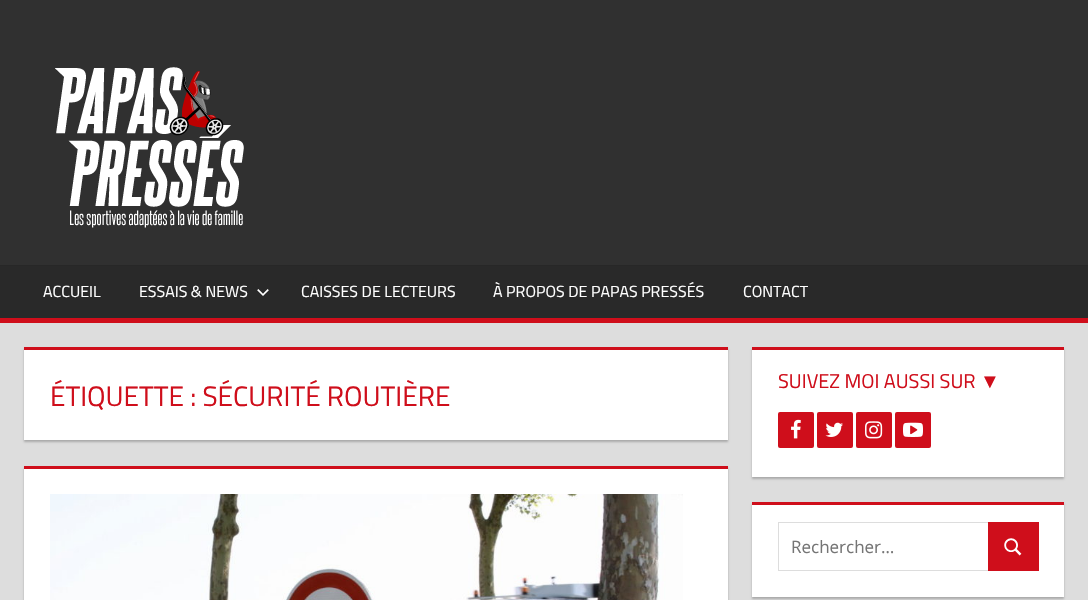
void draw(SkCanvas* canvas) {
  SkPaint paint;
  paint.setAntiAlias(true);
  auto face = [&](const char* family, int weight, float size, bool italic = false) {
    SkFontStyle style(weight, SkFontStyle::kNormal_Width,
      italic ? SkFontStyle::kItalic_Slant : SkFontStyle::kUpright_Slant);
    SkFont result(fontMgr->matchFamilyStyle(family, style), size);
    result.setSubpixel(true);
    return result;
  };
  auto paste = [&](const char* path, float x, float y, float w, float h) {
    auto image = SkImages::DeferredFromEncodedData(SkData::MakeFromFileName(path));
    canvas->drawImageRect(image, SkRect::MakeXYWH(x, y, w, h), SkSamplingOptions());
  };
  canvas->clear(0xffdddddd);
  paint.setColor(0xff303030);
  canvas->drawRect(SkRect::MakeXYWH(0, 0, 1088, 265), paint);
  paste("img/1.png", 55, 67, 189, 161);
  {
    const struct { float x, y, w, h; SkColor color; } items[] = {
      {0, 266, 1088, 52, 0xff292929},
      {0, 265, 1088, 1, 0xff272727},
      {0, 318, 1088, 5, 0xffcf0e1b},
    };
    for (auto [x, y, w, h, color] : items) {
      paint.setColor(color);
      canvas->drawRect(SkRect::MakeXYWH(x, y, w, h), paint);
    }
  }
  paste("img/2.png", 257, 289, 12, 7);
  paint.setColor(0xffaaaaaa);
  paint.setMaskFilter(SkMaskFilter::MakeBlur(kNormal_SkBlurStyle, 1));
  canvas->drawRect(SkRect::MakeXYWH(24, 349, 704, 93), paint);
  paint.setMaskFilter(nullptr);
  paint.setColor(0xffffffff);
  canvas->drawRect(SkRect::MakeXYWH(24, 350, 704, 90), paint);
  paint.setColor(0xffcf0e1b);
  canvas->drawRect(SkRect::MakeXYWH(24, 347, 704, 3), paint);
  paint.setColor(0xffaaaaaa);
  paint.setMaskFilter(SkMaskFilter::MakeBlur(kNormal_SkBlurStyle, 1));
  canvas->drawRect(SkRect::MakeXYWH(24, 468, 704, 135), paint);
  paint.setMaskFilter(nullptr);
  paint.setColor(0xffffffff);
  canvas->drawRect(SkRect::MakeXYWH(24, 469, 704, 131), paint);
  paint.setColor(0xffcf0e1b);
  canvas->drawRect(SkRect::MakeXYWH(24, 466, 704, 3), paint);
  paste("img/3.png", 50, 494, 633, 106);
  paint.setColor(0xffaaaaaa);
  paint.setMaskFilter(SkMaskFilter::MakeBlur(kNormal_SkBlurStyle, 1));
  canvas->drawRect(SkRect::MakeXYWH(752, 349, 312, 130), paint);
  paint.setMaskFilter(nullptr);
  paint.setColor(0xffffffff);
  canvas->drawRect(SkRect::MakeXYWH(752, 350, 312, 127), paint);
  paint.setColor(0xffcf0e1b);
  canvas->drawRect(SkRect::MakeXYWH(752, 347, 312, 3), paint);
  canvas->drawRoundRect(SkRect::MakeXYWH(778, 412, 36, 36), 2, 2, paint);
  paste("img/4.png", 791, 419, 10, 20);
  canvas->drawRoundRect(SkRect::MakeXYWH(817, 412, 36, 36), 2, 2, paint);
  paste("img/5.png", 825, 422, 18, 15);
  canvas->drawRoundRect(SkRect::MakeXYWH(856, 412, 36, 36), 2, 2, paint);
  paste("img/6.png", 865, 421, 18, 18);
  canvas->drawRoundRect(SkRect::MakeXYWH(895, 412, 36, 36), 2, 2, paint);
  paste("img/7.png", 903, 422, 20, 15);
  paint.setColor(0xffaaaaaa);
  paint.setMaskFilter(SkMaskFilter::MakeBlur(kNormal_SkBlurStyle, 1));
  canvas->drawRect(SkRect::MakeXYWH(752, 504, 312, 95), paint);
  paint.setMaskFilter(nullptr);
  paint.setColor(0xffffffff);
  canvas->drawRect(SkRect::MakeXYWH(752, 505, 312, 92), paint);
  paint.setColor(0xffcf0e1b);
  canvas->drawRect(SkRect::MakeXYWH(752, 502, 312, 3), paint);
  paint.setStroke(true);
  paint.setStrokeWidth(1);
  paint.setColor(0xffdddddd);
  canvas->drawRect(SkRect::MakeXYWH(778.5f, 522.5f, 210, 48), paint);
  paint.setStroke(false);
  paint.setColor(0xffcf0e1b);
  canvas->drawRect(SkRect::MakeXYWH(988, 522, 51, 49), paint);
  paste("img/8.png", 1004, 538, 18, 18);
  auto f0 = face("Titillium Web", 400, 16);
  paint.setColor(0xffffffff);
  {
    const struct { const char* s; float x, y; } items[] = {
      {"ACCUEIL", 43, 297},
      {"ESSAIS & NEWS", 139, 297},
      {"CAISSES DE LECTEURS", 301, 297},
      {"À PROPOS DE PAPAS PRESSÉS", 493, 297},
      {"CONTACT", 743, 297},
    };
    for (auto [s, x, y] : items) {
      canvas->drawString(s, x, y, f0, paint);
    }
  }
  auto f1 = face("Titillium Web", 400, 28);
  paint.setColor(0xffcf0e1b);
  canvas->drawString("ÉTIQUETTE : SÉCURITÉ ROUTIÈRE", 50, 406, f1, paint);
  auto f2 = face("Titillium Web", 400, 20);
  canvas->drawString("SUIVEZ MOI AUSSI SUR", 778, 388, f2, paint);
  auto f3 = face("Liberation Sans", 400, 20);
  canvas->drawString("▼", 980, 388, f3, paint);
  auto f4 = face("Open Sans", 400, 17);
  paint.setColor(0xff757575);
  canvas->drawString("Rechercher…", 791, 553, f4, paint);
}
